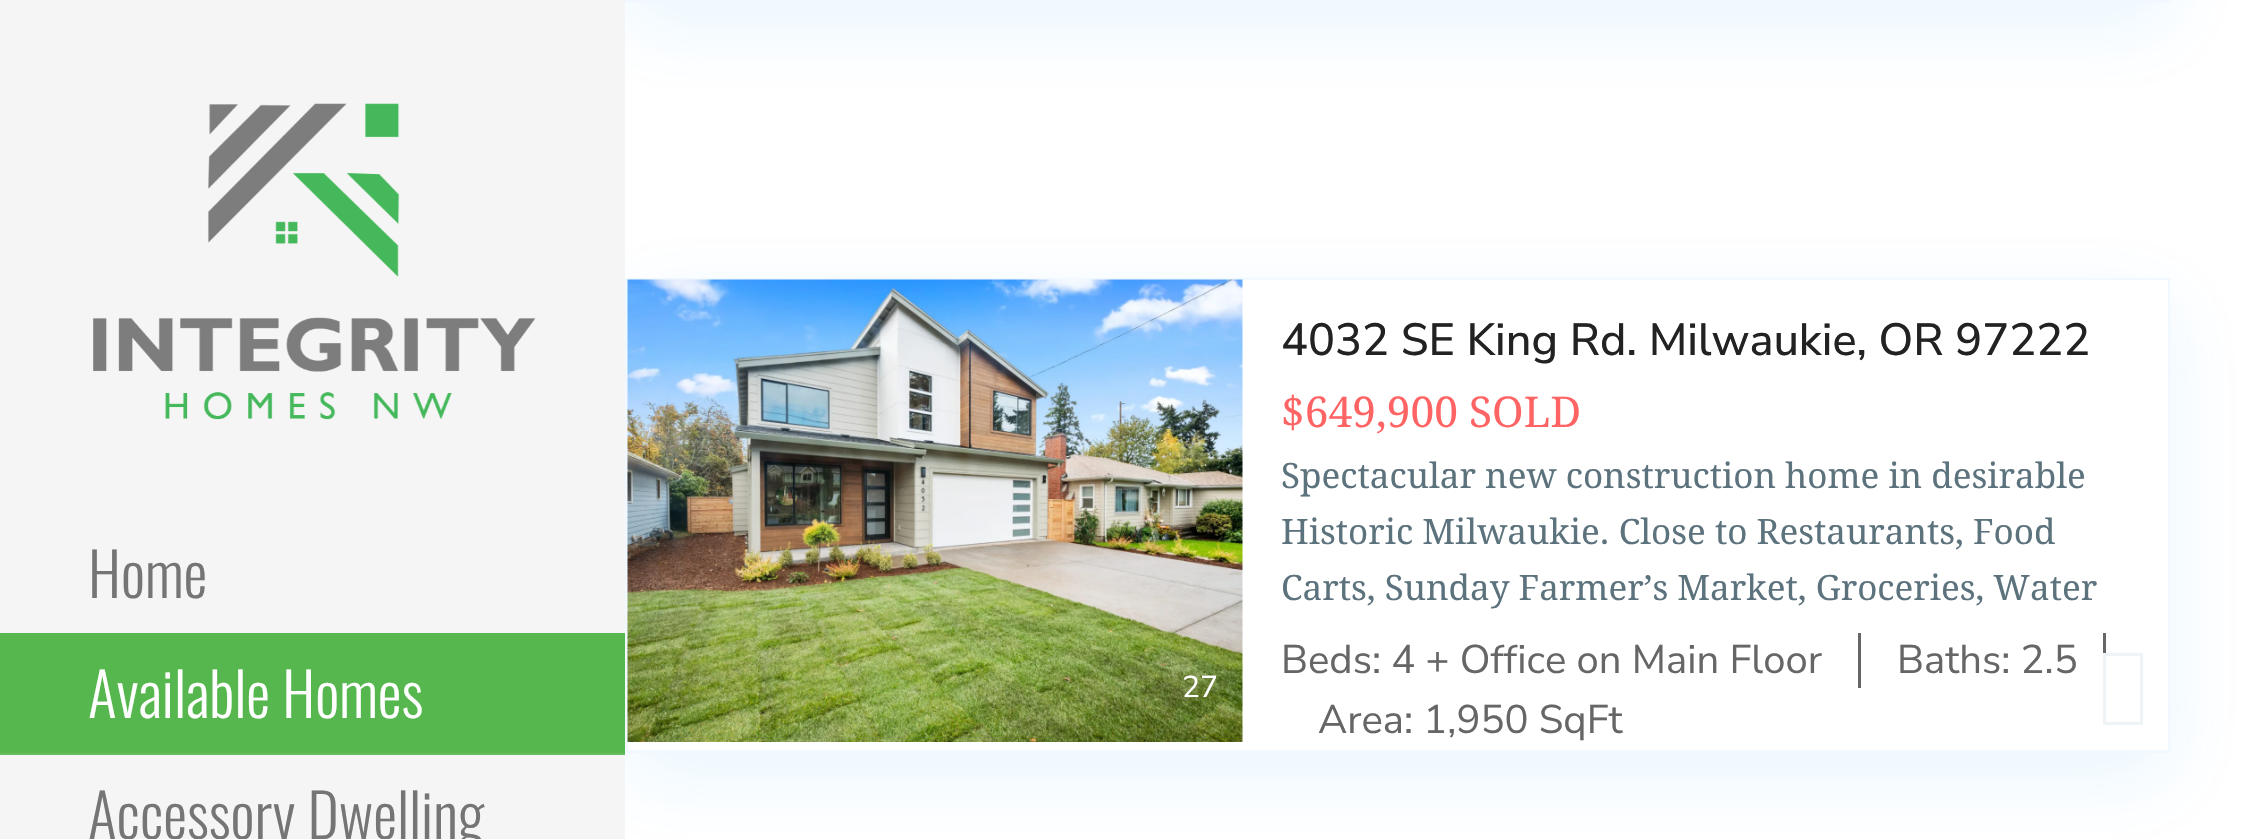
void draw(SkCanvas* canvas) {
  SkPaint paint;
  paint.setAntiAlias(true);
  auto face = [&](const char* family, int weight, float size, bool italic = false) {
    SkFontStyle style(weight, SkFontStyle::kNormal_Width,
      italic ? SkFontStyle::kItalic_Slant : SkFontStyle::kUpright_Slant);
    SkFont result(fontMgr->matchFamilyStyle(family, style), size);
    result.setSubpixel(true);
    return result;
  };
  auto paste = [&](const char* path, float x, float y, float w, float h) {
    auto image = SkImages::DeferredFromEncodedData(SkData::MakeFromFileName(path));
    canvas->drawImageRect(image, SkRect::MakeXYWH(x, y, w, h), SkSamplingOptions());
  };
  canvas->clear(0xffffffff);
  paint.setColor(0x170798ff);
  paint.setMaskFilter(SkMaskFilter::MakeBlur(kNormal_SkBlurStyle, 39));
  canvas->drawRect(SkRect::MakeXYWH(625, -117, 1545, 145), paint);
  paint.setMaskFilter(nullptr);
  paint.setMaskFilter(SkMaskFilter::MakeBlur(kNormal_SkBlurStyle, 39));
  canvas->drawRect(SkRect::MakeXYWH(625, 303, 1545, 475), paint);
  paint.setMaskFilter(nullptr);
  paint.setColor(0xfff5f5f5);
  canvas->drawRect(SkRect::MakeXYWH(0, 0, 625, 839), paint);
  paste("img/1.png", 93, 103, 443, 317);
  paint.setColor(0xff55b74e);
  canvas->drawRect(SkRect::MakeXYWH(0, 633, 625, 122), paint);
  paint.setColor(0x1affffff);
  canvas->drawRect(SkRect::MakeXYWH(0, 753, 625, 2), paint);
  paint.setStroke(true);
  paint.setStrokeWidth(3);
  paint.setColor(0xfff1f8ff);
  canvas->drawRect(SkRect::MakeXYWH(626.5f, -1.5f, 1542, 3), paint);
  paint.setStroke(false);
  paint.setColor(0xffffffff);
  canvas->drawRect(SkRect::MakeXYWH(628, 281, 615, 469), paint);
  paint.setStroke(true);
  paint.setColor(0xfff1f8ff);
  canvas->drawRect(SkRect::MakeXYWH(626.5f, 279.5f, 1542, 472), paint);
  paste("img/2.png", 627, 279, 616, 463);
  paint.setStroke(false);
  {
    const struct { float x, y, w, h; SkColor color; } items[] = {
      {1243, 280, 925, 470, 0xffffffff},
      {1858, 633, 3, 55, 0xff666666},
      {2103, 633, 3, 20, 0xff666666},
    };
    for (auto [x, y, w, h, color] : items) {
      paint.setColor(color);
      canvas->drawRect(SkRect::MakeXYWH(x, y, w, h), paint);
    }
  }
  paint.setStroke(true);
  paint.setColor(0xffeef3f6);
  canvas->drawRect(SkRect::MakeXYWH(2104.5f, 654.5f, 37, 69), paint);
  auto f0 = face("Oswald", 300, 60);
  paint.setStroke(false);
  paint.setColor(0xff757575);
  canvas->drawString("Home", 88, 598, f0, paint);
  paint.setColor(0xffffffff);
  canvas->drawString("Available Homes", 88, 718, f0, paint);
  paint.setColor(0xff757575);
  canvas->drawString("Accessory Dwelling", 88, 839, f0, paint);
  auto f1 = face("Nunito Sans", 400, 30);
  paint.setColor(0xffffffff);
  canvas->drawString("27", 1182, 697, f1, paint);
  auto f2 = face("Nunito Sans", 500, 45);
  paint.setColor(0xff222222);
  canvas->drawString("4032 SE King Rd. Milwaukie, OR 97222", 1281, 355, f2, paint);
  auto f3 = face("Droid Serif", 400, 42.5f);
  paint.setColor(0xffff6464);
  canvas->drawString("$649,900 SOLD", 1281, 427, f3, paint);
  auto f4 = face("Droid Serif", 400, 35);
  paint.setColor(0xff5c727d);
  {
    const struct { const char* s; float x, y; } items[] = {
      {"Spectacular new construction home in desirable", 1281, 488},
      {"Historic Milwaukie. Close to Restaurants, Food", 1281, 544},
      {"Carts, Sunday Farmer’s Market, Groceries, Water", 1281, 600},
    };
    for (auto [s, x, y] : items) {
      canvas->drawString(s, x, y, f4, paint);
    }
  }
  auto f5 = face("Nunito Sans", 400, 40);
  paint.setColor(0xff666666);
  {
    const struct { const char* s; float x, y; } items[] = {
      {"Beds: 4 + Office on Main Floor", 1281, 673},
      {"Baths: 2.5", 1897, 673},
      {"Area: 1,950 SqFt", 1318, 733},
    };
    for (auto [s, x, y] : items) {
      canvas->drawString(s, x, y, f5, paint);
    }
  }
}
